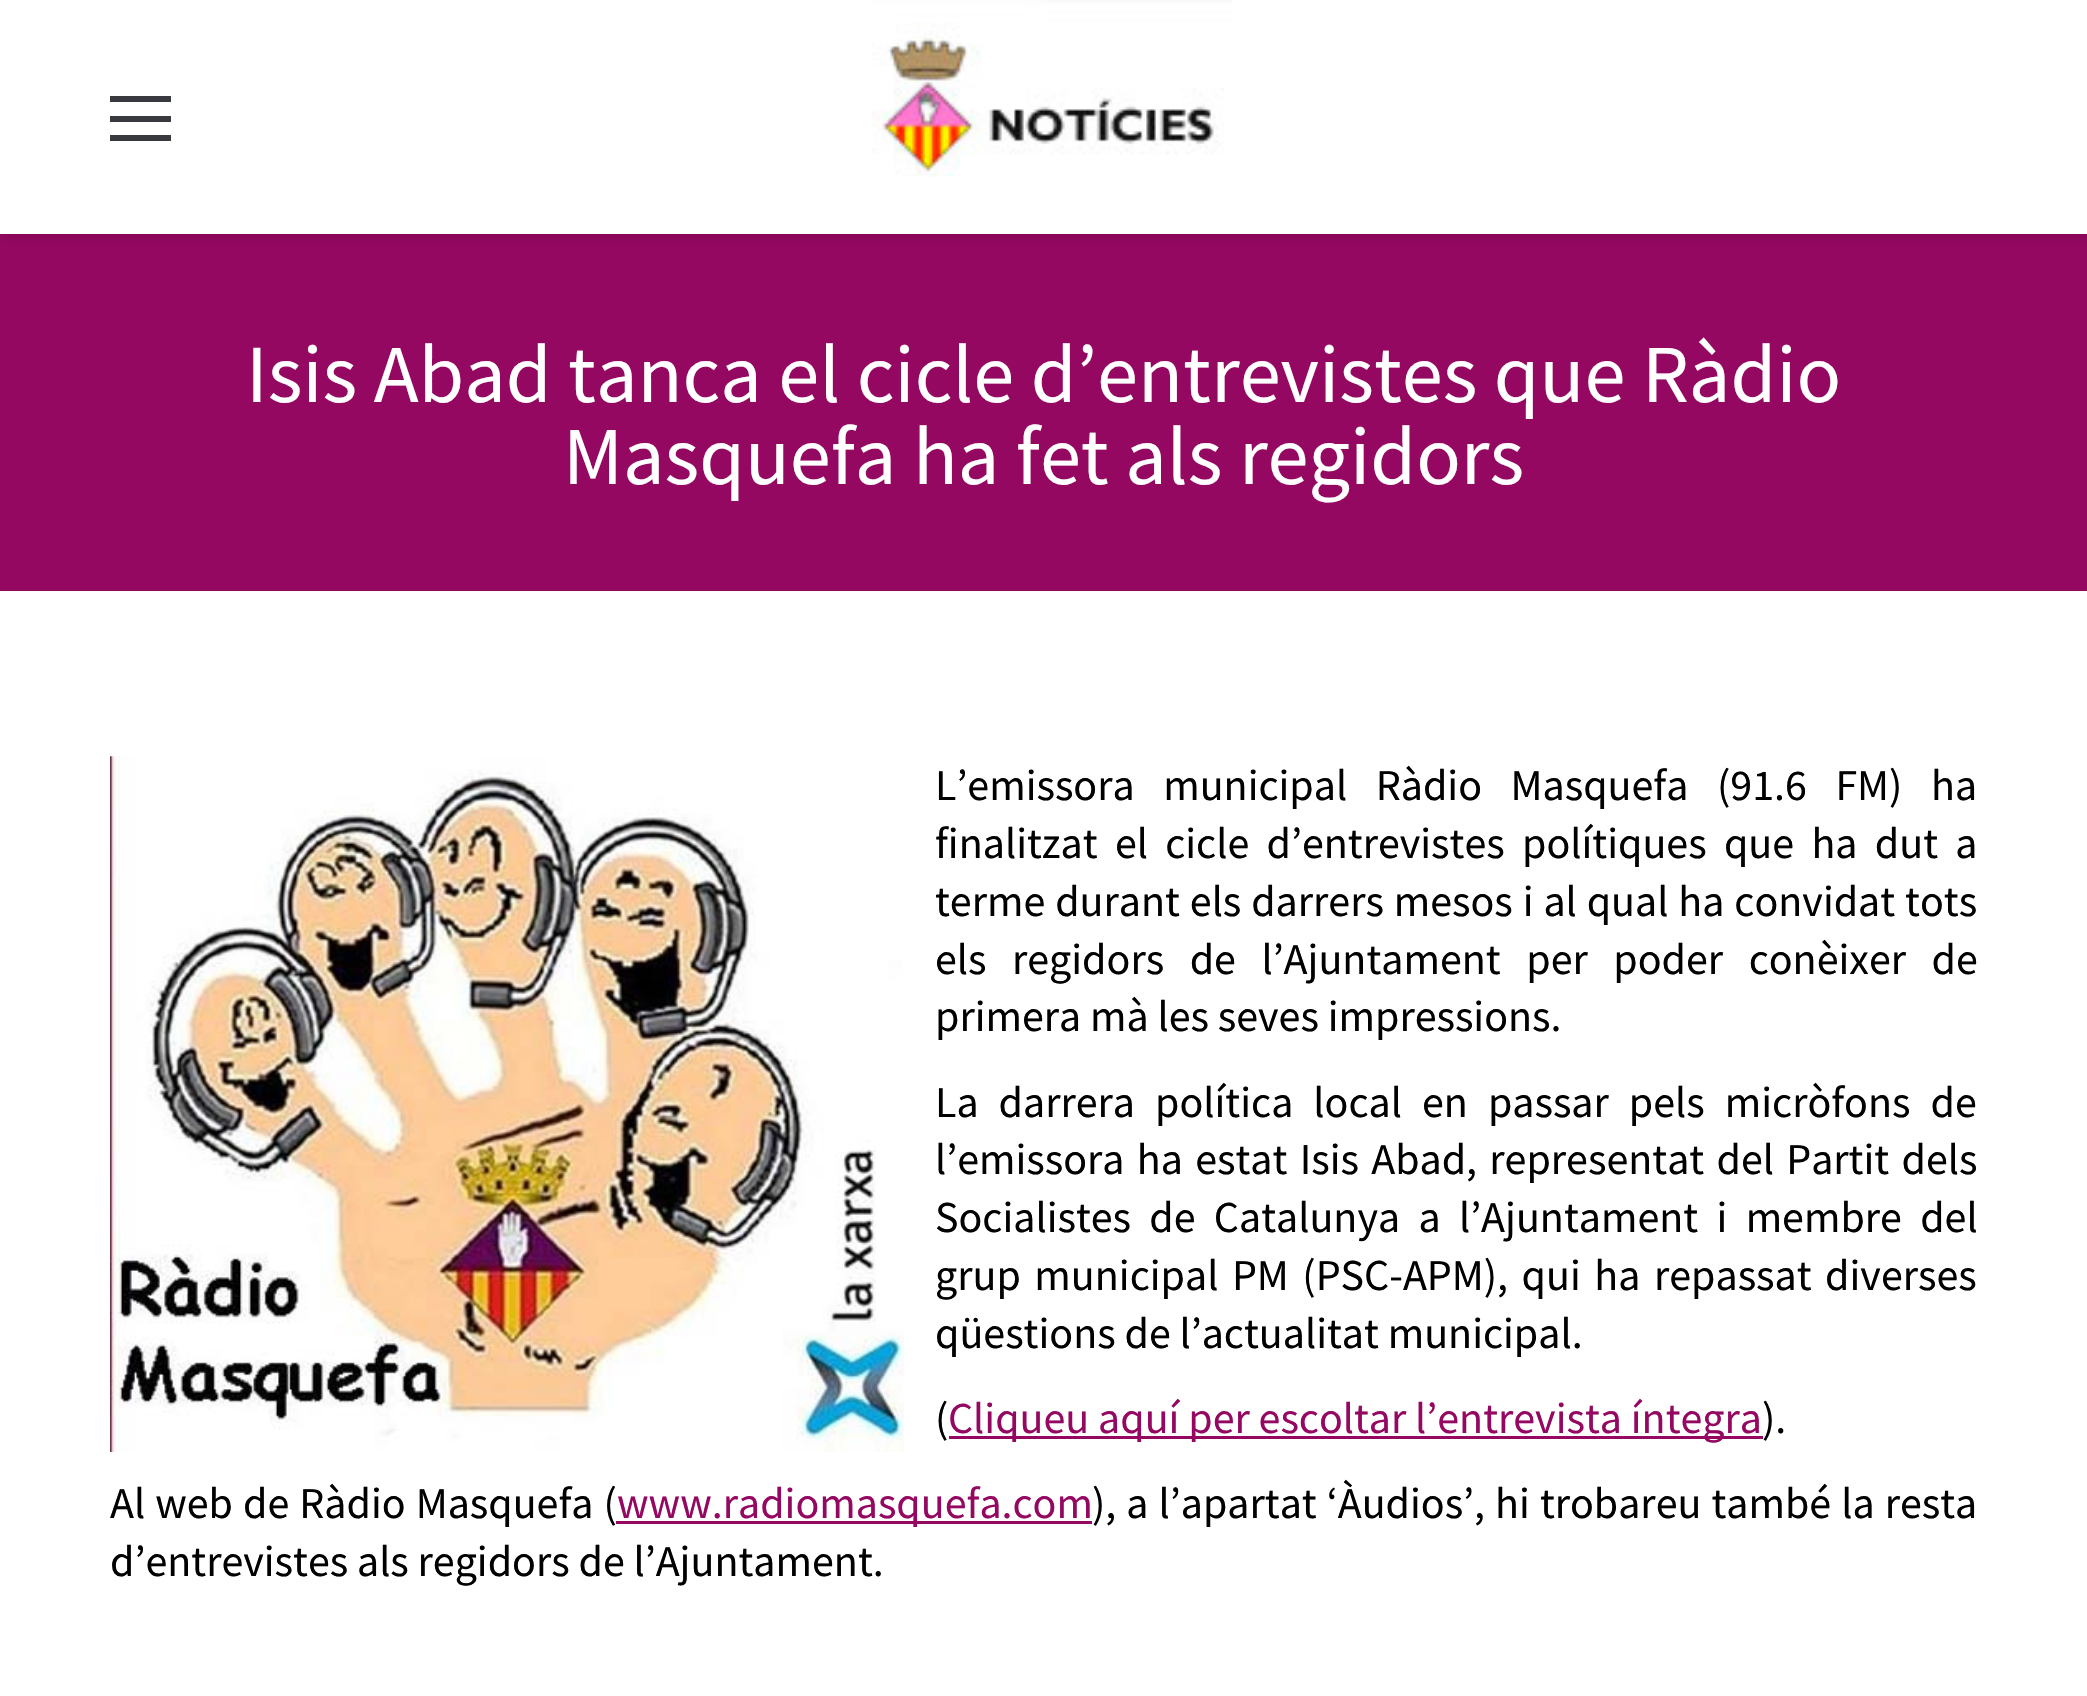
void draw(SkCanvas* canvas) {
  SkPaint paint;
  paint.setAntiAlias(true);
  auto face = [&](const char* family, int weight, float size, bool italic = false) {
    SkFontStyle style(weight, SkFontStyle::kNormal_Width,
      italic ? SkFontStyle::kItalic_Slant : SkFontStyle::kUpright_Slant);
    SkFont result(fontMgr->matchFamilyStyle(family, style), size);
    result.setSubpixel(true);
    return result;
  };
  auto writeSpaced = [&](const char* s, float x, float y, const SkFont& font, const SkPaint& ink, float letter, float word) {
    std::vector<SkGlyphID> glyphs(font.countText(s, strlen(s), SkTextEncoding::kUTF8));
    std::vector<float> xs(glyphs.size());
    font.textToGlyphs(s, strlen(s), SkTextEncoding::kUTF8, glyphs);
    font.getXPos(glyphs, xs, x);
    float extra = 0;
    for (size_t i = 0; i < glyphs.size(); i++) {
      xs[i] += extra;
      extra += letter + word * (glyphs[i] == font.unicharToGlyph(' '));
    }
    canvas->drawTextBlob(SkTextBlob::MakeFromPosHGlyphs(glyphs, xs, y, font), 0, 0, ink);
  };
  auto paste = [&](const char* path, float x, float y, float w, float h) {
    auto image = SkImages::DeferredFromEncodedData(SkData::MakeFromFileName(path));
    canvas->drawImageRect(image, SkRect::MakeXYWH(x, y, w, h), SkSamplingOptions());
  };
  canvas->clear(0xffffffff);
  paint.setColor(0xff950862);
  canvas->drawRect(SkRect::MakeXYWH(0, 234, 2087, 357), paint);
  paint.setColor(0x1a000000);
  paint.setMaskFilter(SkMaskFilter::MakeBlur(kNormal_SkBlurStyle, 5.5f));
  canvas->drawRect(SkRect::MakeXYWH(0, 0, 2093, 239), paint);
  paint.setMaskFilter(nullptr);
  {
    const struct { float x, y, w, h; SkColor color; } items[] = {
      {0, 0, 2087, 234, 0xffffffff},
      {110, 116, 61, 6, 0xff393940},
      {110, 96, 61, 6, 0xff393940},
      {110, 135, 61, 6, 0xff393940},
    };
    for (auto [x, y, w, h, color] : items) {
      paint.setColor(color);
      canvas->drawRect(SkRect::MakeXYWH(x, y, w, h), paint);
    }
  }
  paste("img/1.png", 872, 0, 360, 177);
  paste("img/2.png", 110, 756, 794, 696);
  paint.setColor(0xff950862);
  canvas->drawRect(SkRect::MakeXYWH(949, 1436, 814, 3), paint);
  canvas->drawRect(SkRect::MakeXYWH(616, 1521, 476, 3), paint);
  auto f0 = face("Source Sans Pro", 400, 82.5f);
  paint.setColor(0xffffffff);
  canvas->drawString("Isis Abad tanca el cicle d’entrevistes que Ràdio", 246, 402, f0, paint);
  canvas->drawString("Masquefa ha fet als regidors", 563, 484, f0, paint);
  auto f1 = face("Source Sans Pro", 400, 44);
  paint.setColor(0xff000000);
  writeSpaced("L’emissora municipal Ràdio Masquefa (91.6 FM) ha", 935, 800, f1, paint, 0, 19.75f);
  writeSpaced("finalitzat el cicle d’entrevistes polítiques que ha dut a", 935, 858, f1, paint, 0, 8.5f);
  writeSpaced("terme durant els darrers mesos i al qual ha convidat tots", 935, 916, f1, paint, 0, 1.1f);
  writeSpaced("els regidors de l’Ajuntament per poder conèixer de", 935, 974, f1, paint, 0, 16.75f);
  canvas->drawString("primera mà les seves impressions.", 935, 1031, f1, paint);
  writeSpaced("La darrera política local en passar pels micròfons de", 935, 1117, f1, paint, 0, 11.25f);
  writeSpaced("l’emissora ha estat Isis Abad, representat del Partit dels", 935, 1174, f1, paint, 0, 3.5f);
  writeSpaced("Socialistes de Catalunya a l’Ajuntament i membre del", 935, 1232, f1, paint, 0, 9.5f);
  writeSpaced("grup municipal PM (PSC-APM), qui ha repassat diverses", 935, 1290, f1, paint, 0, 4.75f);
  canvas->drawString("qüestions de l’actualitat municipal.", 935, 1348, f1, paint);
  canvas->drawString("(", 935, 1433, f1, paint);
  paint.setColor(0xff950862);
  canvas->drawString("Cliqueu aquí per escoltar l’entrevista íntegra", 948, 1433, f1, paint);
  paint.setColor(0xff000000);
  canvas->drawString(").", 1762, 1433, f1, paint);
  writeSpaced("Al web de Ràdio Masquefa (", 110, 1518, f1, paint, 0, 1.25f);
  paint.setColor(0xff950862);
  canvas->drawString("www.radiomasquefa.com", 617, 1518, f1, paint);
  paint.setColor(0xff000000);
  writeSpaced("), a l’apartat ‘Àudios’, hi trobareu també la resta", 1092, 1518, f1, paint, 0, 1.25f);
  canvas->drawString("d’entrevistes als regidors de l’Ajuntament.", 110, 1576, f1, paint);
}
